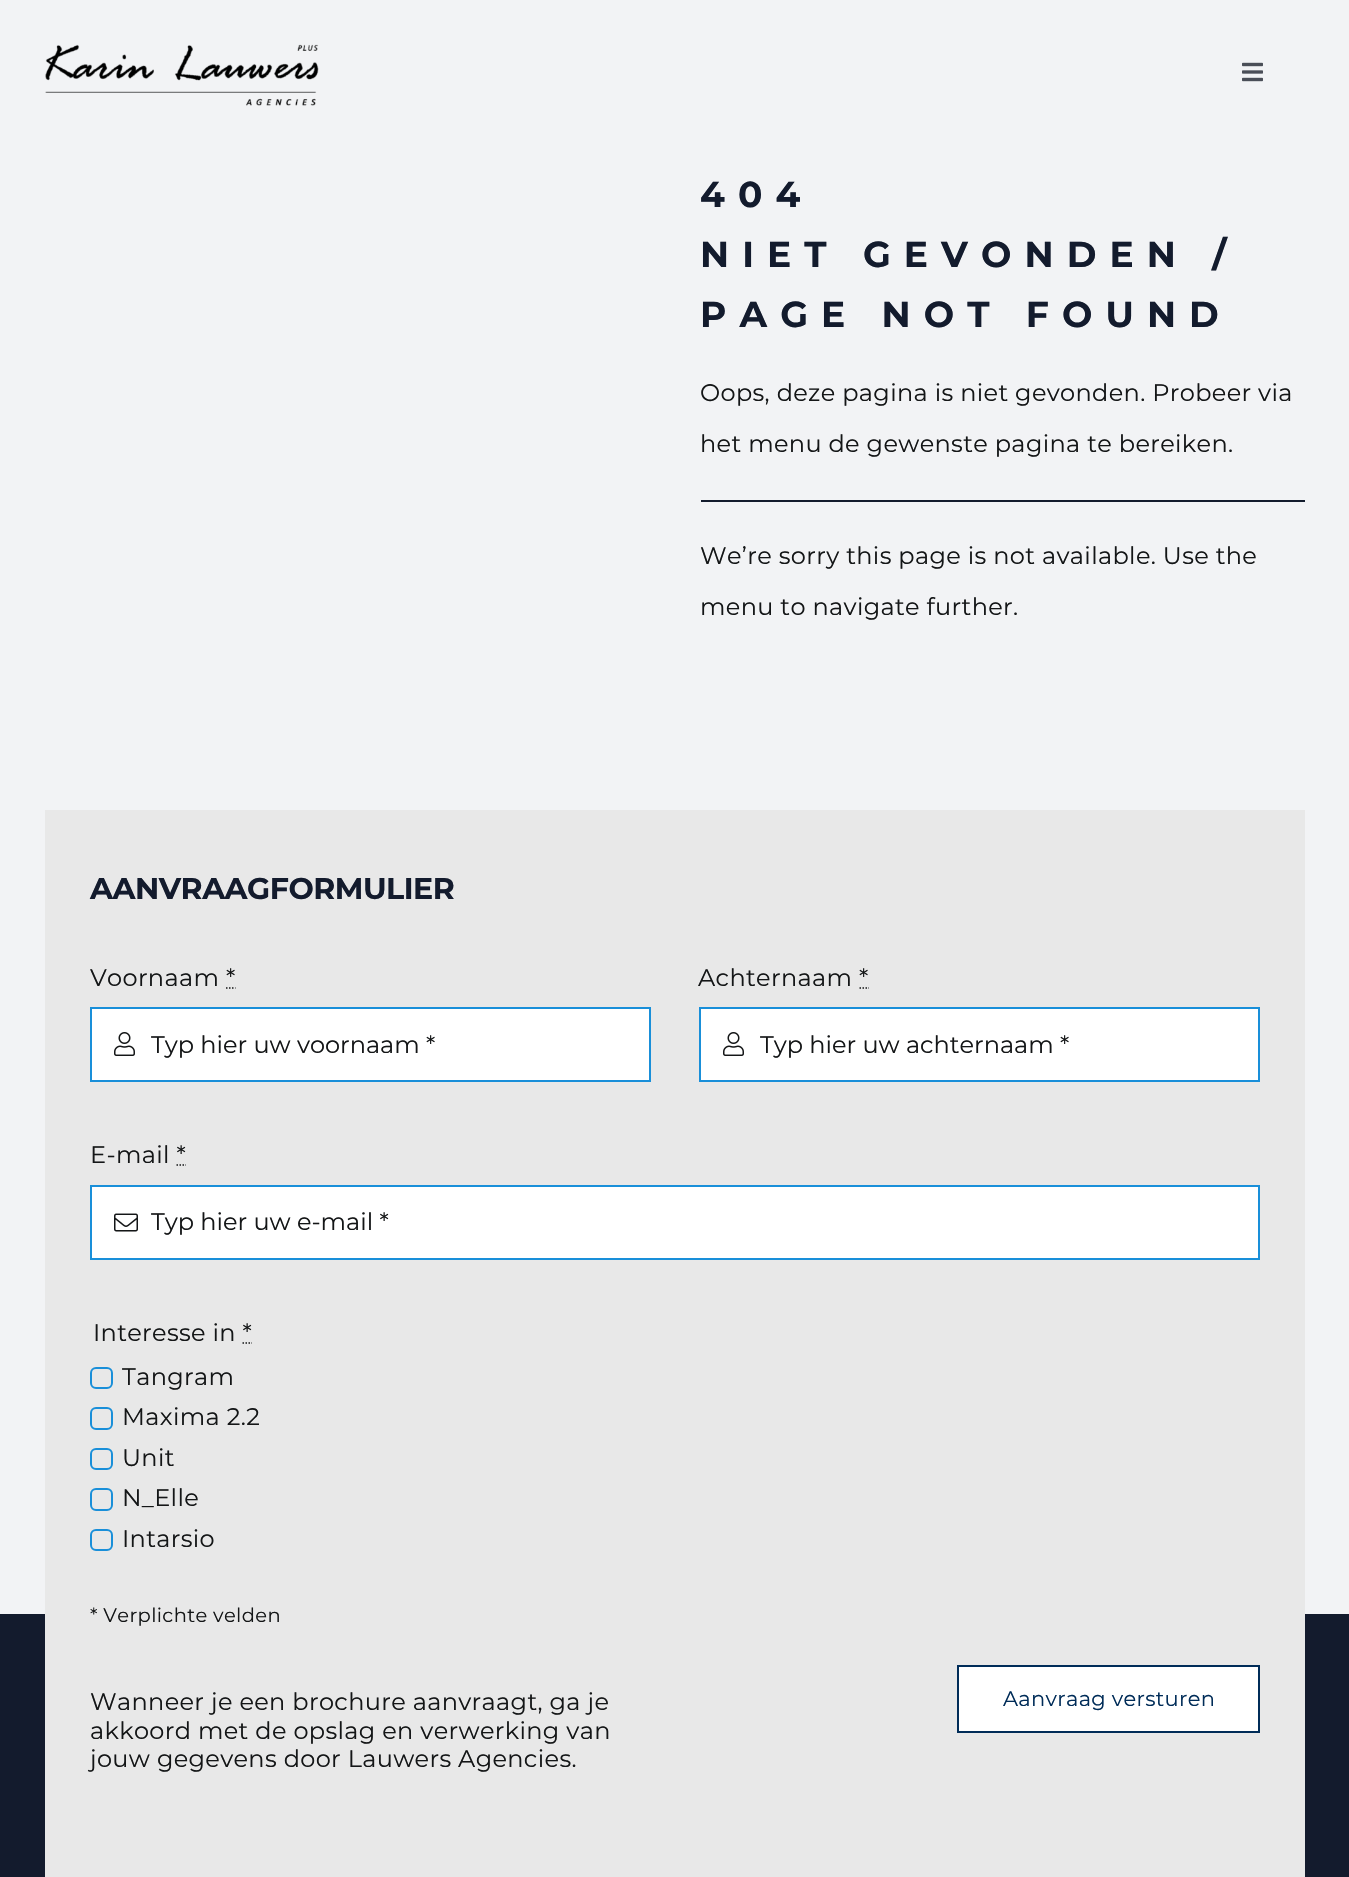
void draw(SkCanvas* canvas) {
  SkPaint paint;
  paint.setAntiAlias(true);
  auto face = [&](const char* family, int weight, float size, bool italic = false) {
    SkFontStyle style(weight, SkFontStyle::kNormal_Width,
      italic ? SkFontStyle::kItalic_Slant : SkFontStyle::kUpright_Slant);
    SkFont result(fontMgr->matchFamilyStyle(family, style), size);
    result.setSubpixel(true);
    return result;
  };
  auto writeSpaced = [&](const char* s, float x, float y, const SkFont& font, const SkPaint& ink, float letter, float word) {
    std::vector<SkGlyphID> glyphs(font.countText(s, strlen(s), SkTextEncoding::kUTF8));
    std::vector<float> xs(glyphs.size());
    font.textToGlyphs(s, strlen(s), SkTextEncoding::kUTF8, glyphs);
    font.getXPos(glyphs, xs, x);
    float extra = 0;
    for (size_t i = 0; i < glyphs.size(); i++) {
      xs[i] += extra;
      extra += letter + word * (glyphs[i] == font.unicharToGlyph(' '));
    }
    canvas->drawTextBlob(SkTextBlob::MakeFromPosHGlyphs(glyphs, xs, y, font), 0, 0, ink);
  };
  auto paste = [&](const char* path, float x, float y, float w, float h) {
    auto image = SkImages::DeferredFromEncodedData(SkData::MakeFromFileName(path));
    canvas->drawImageRect(image, SkRect::MakeXYWH(x, y, w, h), SkSamplingOptions());
  };
  auto shape = [&](const char* data, bool evenOdd = false) {
    SkPath result = *SkParsePath::FromSVGString(data);
    if (evenOdd) result.setFillType(SkPathFillType::kEvenOdd);
    return result;
  };
  canvas->clear(0xfff2f3f5);
  paste("img/1.png", 45, 44, 274, 62);
  paste("img/2.png", 1242, 62, 21, 20);
  {
    const struct { float x, y, w, h; SkColor color; } items[] = {
      {701, 500, 604, 2, 0xff131b2d},
      {0, 1614, 1349, 263, 0xff131b2d},
      {45, 810, 1260, 1067, 0xffe8e8e8},
    };
    for (auto [x, y, w, h, color] : items) {
      paint.setColor(color);
      canvas->drawRect(SkRect::MakeXYWH(x, y, w, h), paint);
    }
  }
  paint.setStroke(true);
  paint.setStrokeWidth(1.5f);
  paint.setColor(0xff141617);
  canvas->drawPath(shape("M226 988H227.5M229 988H230.5M232 988H233.5M235 988H235.5"), paint);
  paint.setStroke(false);
  paint.setColor(0xffffffff);
  canvas->drawRect(SkRect::MakeXYWH(91, 1008, 559, 73), paint);
  paint.setStroke(true);
  paint.setStrokeWidth(2);
  paint.setColor(0xff198fd9);
  canvas->drawRect(SkRect::MakeXYWH(91, 1008, 559, 73), paint);
  paste("img/3.png", 114, 1032, 21, 24);
  paint.setStrokeWidth(1.5f);
  paint.setColor(0xff141617);
  canvas->drawPath(shape("M859.5 988H861M862.5 988H864M865.5 988H867M868.5 988H869"), paint);
  paint.setStroke(false);
  paint.setColor(0xffffffff);
  canvas->drawRect(SkRect::MakeXYWH(700, 1008, 559, 73), paint);
  paint.setStroke(true);
  paint.setStrokeWidth(2);
  paint.setColor(0xff198fd9);
  canvas->drawRect(SkRect::MakeXYWH(700, 1008, 559, 73), paint);
  paste("img/3.png", 723, 1032, 21, 24);
  paint.setStrokeWidth(1.5f);
  paint.setColor(0xff141617);
  canvas->drawPath(shape("M176.5 1165H178M179.5 1165H181M182.5 1165H184M185.5 1165H186"), paint);
  paint.setStroke(false);
  paint.setColor(0xffffffff);
  canvas->drawRect(SkRect::MakeXYWH(91, 1186, 1168, 73), paint);
  paint.setStroke(true);
  paint.setStrokeWidth(2);
  paint.setColor(0xff198fd9);
  canvas->drawRect(SkRect::MakeXYWH(91, 1186, 1168, 73), paint);
  paste("img/4.png", 114, 1213, 24, 19);
  paint.setStrokeWidth(1.5f);
  paint.setColor(0xff141617);
  canvas->drawPath(shape("M242.5 1343H244M245.5 1343H247M248.5 1343H250M251.5 1343H252"), paint);
  paint.setStrokeWidth(2);
  paint.setColor(0xff198fd9);
  canvas->drawRoundRect(SkRect::MakeXYWH(91, 1368, 21, 20), 5, 5, paint);
  canvas->drawRoundRect(SkRect::MakeXYWH(91, 1408, 21, 21), 5, 5, paint);
  canvas->drawRoundRect(SkRect::MakeXYWH(91, 1449, 21, 20), 5, 5, paint);
  canvas->drawRoundRect(SkRect::MakeXYWH(91, 1489, 21, 21), 5, 5, paint);
  canvas->drawRoundRect(SkRect::MakeXYWH(91, 1530, 21, 20), 5, 5, paint);
  paint.setStroke(false);
  paint.setColor(0xffffffff);
  canvas->drawRect(SkRect::MakeXYWH(958, 1666, 301, 66), paint);
  paint.setStroke(true);
  paint.setColor(0xff002c58);
  canvas->drawRect(SkRect::MakeXYWH(958, 1666, 301, 66), paint);
  auto f0 = face("Montserrat", 700, 36);
  paint.setStroke(false);
  paint.setColor(0xff131b2d);
  {
    const struct { const char* s; float x, y; } items[] = {
      {"404", 700, 207},
      {"NIET GEVONDEN /", 700, 267},
      {"PAGE NOT FOUND", 700, 327},
    };
    for (auto [s, x, y] : items) {
      writeSpaced(s, x, y, f0, paint, 13.1f, 0);
    }
  }
  auto f1 = face("Montserrat", 400, 24);
  paint.setColor(0xff141617);
  {
    const struct { const char* s; float x, y; } items[] = {
      {"Oops, deze pagina is niet gevonden. Probeer via", 700, 401},
      {"het menu de gewenste pagina te bereiken.", 700, 452},
      {"We’re sorry this page is not available. Use the", 700, 564},
      {"menu to navigate further.", 700, 615},
    };
    for (auto [s, x, y] : items) {
      writeSpaced(s, x, y, f1, paint, 0.35f, 0);
    }
  }
  auto f2 = face("Montserrat", 700, 30);
  paint.setColor(0xff131b2d);
  writeSpaced("AANVRAAGFORMULIER", 90, 899, f2, paint, -0.5f, 0);
  paint.setColor(0xff141617);
  writeSpaced("Voornaam *", 90, 986, f1, paint, 0.35f, 0);
  canvas->drawString("Typ hier uw voornaam *", 151, 1053, f1, paint);
  writeSpaced("Achternaam *", 698, 986, f1, paint, 0.35f, 0);
  canvas->drawString("Typ hier uw achternaam *", 760, 1053, f1, paint);
  writeSpaced("E-mail *", 90, 1163, f1, paint, 0.35f, 0);
  canvas->drawString("Typ hier uw e-mail *", 151, 1230, f1, paint);
  {
    const struct { const char* s; float x, y; } items[] = {
      {"Interesse in *", 93, 1341},
      {"Tangram", 122, 1385},
      {"Maxima 2.2", 122, 1425},
      {"Unit", 122, 1466},
      {"N_Elle", 122, 1506},
      {"Intarsio", 122, 1547},
    };
    for (auto [s, x, y] : items) {
      writeSpaced(s, x, y, f1, paint, 0.35f, 0);
    }
  }
  auto f3 = face("Montserrat", 400, 19.5f);
  writeSpaced("* Verplichte velden", 90, 1622, f3, paint, 0.35f, 0);
  {
    const struct { const char* s; float x, y; } items[] = {
      {"Wanneer je een brochure aanvraagt, ga je", 90, 1710},
      {"akkoord met de opslag en verwerking van", 90, 1739},
      {"jouw gegevens door Lauwers Agencies.", 90, 1767},
    };
    for (auto [s, x, y] : items) {
      writeSpaced(s, x, y, f1, paint, 0.35f, 0);
    }
  }
  auto f4 = face("Montserrat", 400, 21);
  paint.setColor(0xff002c58);
  writeSpaced("Aanvraag versturen", 1003, 1706, f4, paint, 0.3f, 0);
}
